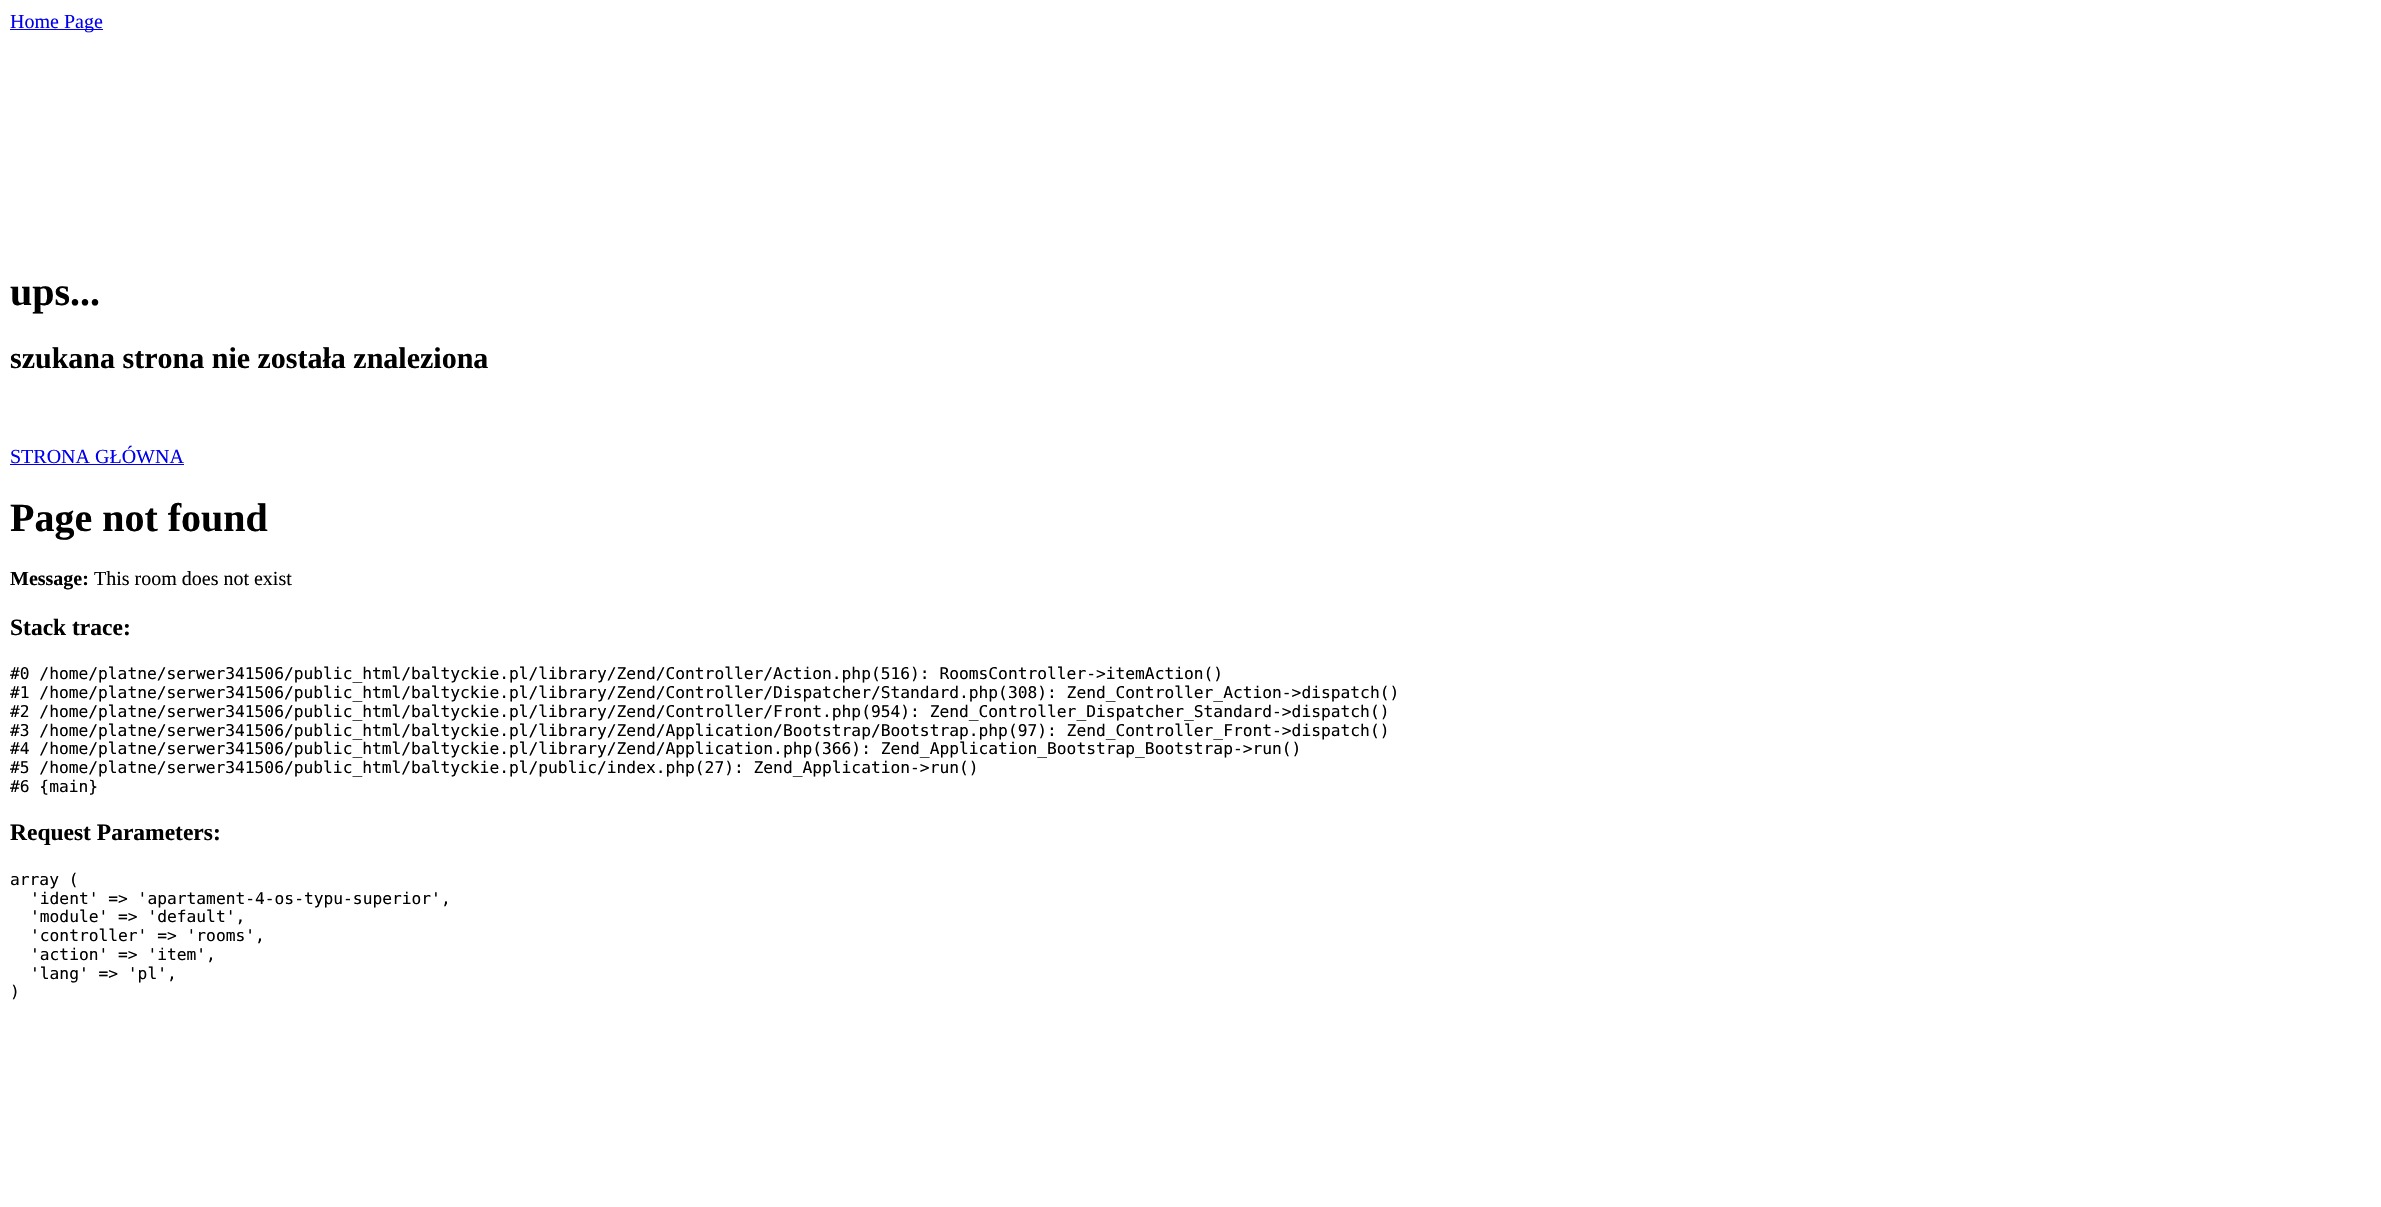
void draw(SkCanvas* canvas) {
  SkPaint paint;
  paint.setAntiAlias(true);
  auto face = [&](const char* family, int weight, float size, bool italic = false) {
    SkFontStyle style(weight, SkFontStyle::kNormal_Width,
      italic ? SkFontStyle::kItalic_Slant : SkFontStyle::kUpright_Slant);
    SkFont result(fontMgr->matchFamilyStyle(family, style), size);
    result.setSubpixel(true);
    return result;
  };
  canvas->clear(0xffffffff);
  paint.setColor(0xff0000ee);
  canvas->drawRect(SkRect::MakeXYWH(10, 29, 93, 1), paint);
  canvas->drawRect(SkRect::MakeXYWH(10, 464, 174, 1), paint);
  auto f0 = face("Liberation Serif", 400, 20);
  canvas->drawString("Home Page", 10, 28, f0, paint);
  auto f1 = face("Liberation Serif", 700, 40);
  paint.setColor(0xff000000);
  canvas->drawString("ups...", 10, 305, f1, paint);
  auto f2 = face("Liberation Serif", 700, 30);
  canvas->drawString("szukana strona nie została znaleziona", 10, 368, f2, paint);
  paint.setColor(0xff0000ee);
  canvas->drawString("STRONA GŁÓWNA", 10, 463, f0, paint);
  paint.setColor(0xff000000);
  canvas->drawString("Page not found", 10, 531, f1, paint);
  auto f3 = face("Liberation Serif", 700, 20);
  canvas->drawString("Message:", 10, 585, f3, paint);
  canvas->drawString("This room does not exist", 94, 585, f0, paint);
  auto f4 = face("Liberation Serif", 700, 23.5f);
  canvas->drawString("Stack trace:", 10, 635, f4, paint);
  auto f5 = face("DejaVu Sans Mono", 400, 16.25f);
  {
    const struct { const char* s; float x, y; } items[] = {
      {"#0 /home/platne/serwer341506/public_html/baltyckie.pl/library/Zend/Controller/Action.php(516): RoomsController->itemAction()", 10, 679},
      {"#1 /home/platne/serwer341506/public_html/baltyckie.pl/library/Zend/Controller/Dispatcher/Standard.php(308): Zend_Controller_Action->dispatch()", 10, 698},
      {"#2 /home/platne/serwer341506/public_html/baltyckie.pl/library/Zend/Controller/Front.php(954): Zend_Controller_Dispatcher_Standard->dispatch()", 10, 717},
      {"#3 /home/platne/serwer341506/public_html/baltyckie.pl/library/Zend/Application/Bootstrap/Bootstrap.php(97): Zend_Controller_Front->dispatch()", 10, 736},
      {"#4 /home/platne/serwer341506/public_html/baltyckie.pl/library/Zend/Application.php(366): Zend_Application_Bootstrap_Bootstrap->run()", 10, 754},
      {"#5 /home/platne/serwer341506/public_html/baltyckie.pl/public/index.php(27): Zend_Application->run()", 10, 773},
      {"#6 {main}", 10, 792},
    };
    for (auto [s, x, y] : items) {
      canvas->drawString(s, x, y, f5, paint);
    }
  }
  canvas->drawString("Request Parameters:", 10, 840, f4, paint);
  {
    const struct { const char* s; float x, y; } items[] = {
      {"array (", 10, 885},
      {"'ident' => 'apartament-4-os-typu-superior',", 30, 904},
      {"'module' => 'default',", 30, 922},
      {"'controller' => 'rooms',", 30, 941},
      {"'action' => 'item',", 30, 960},
      {"'lang' => 'pl',", 30, 979},
      {")", 10, 997},
    };
    for (auto [s, x, y] : items) {
      canvas->drawString(s, x, y, f5, paint);
    }
  }
}
